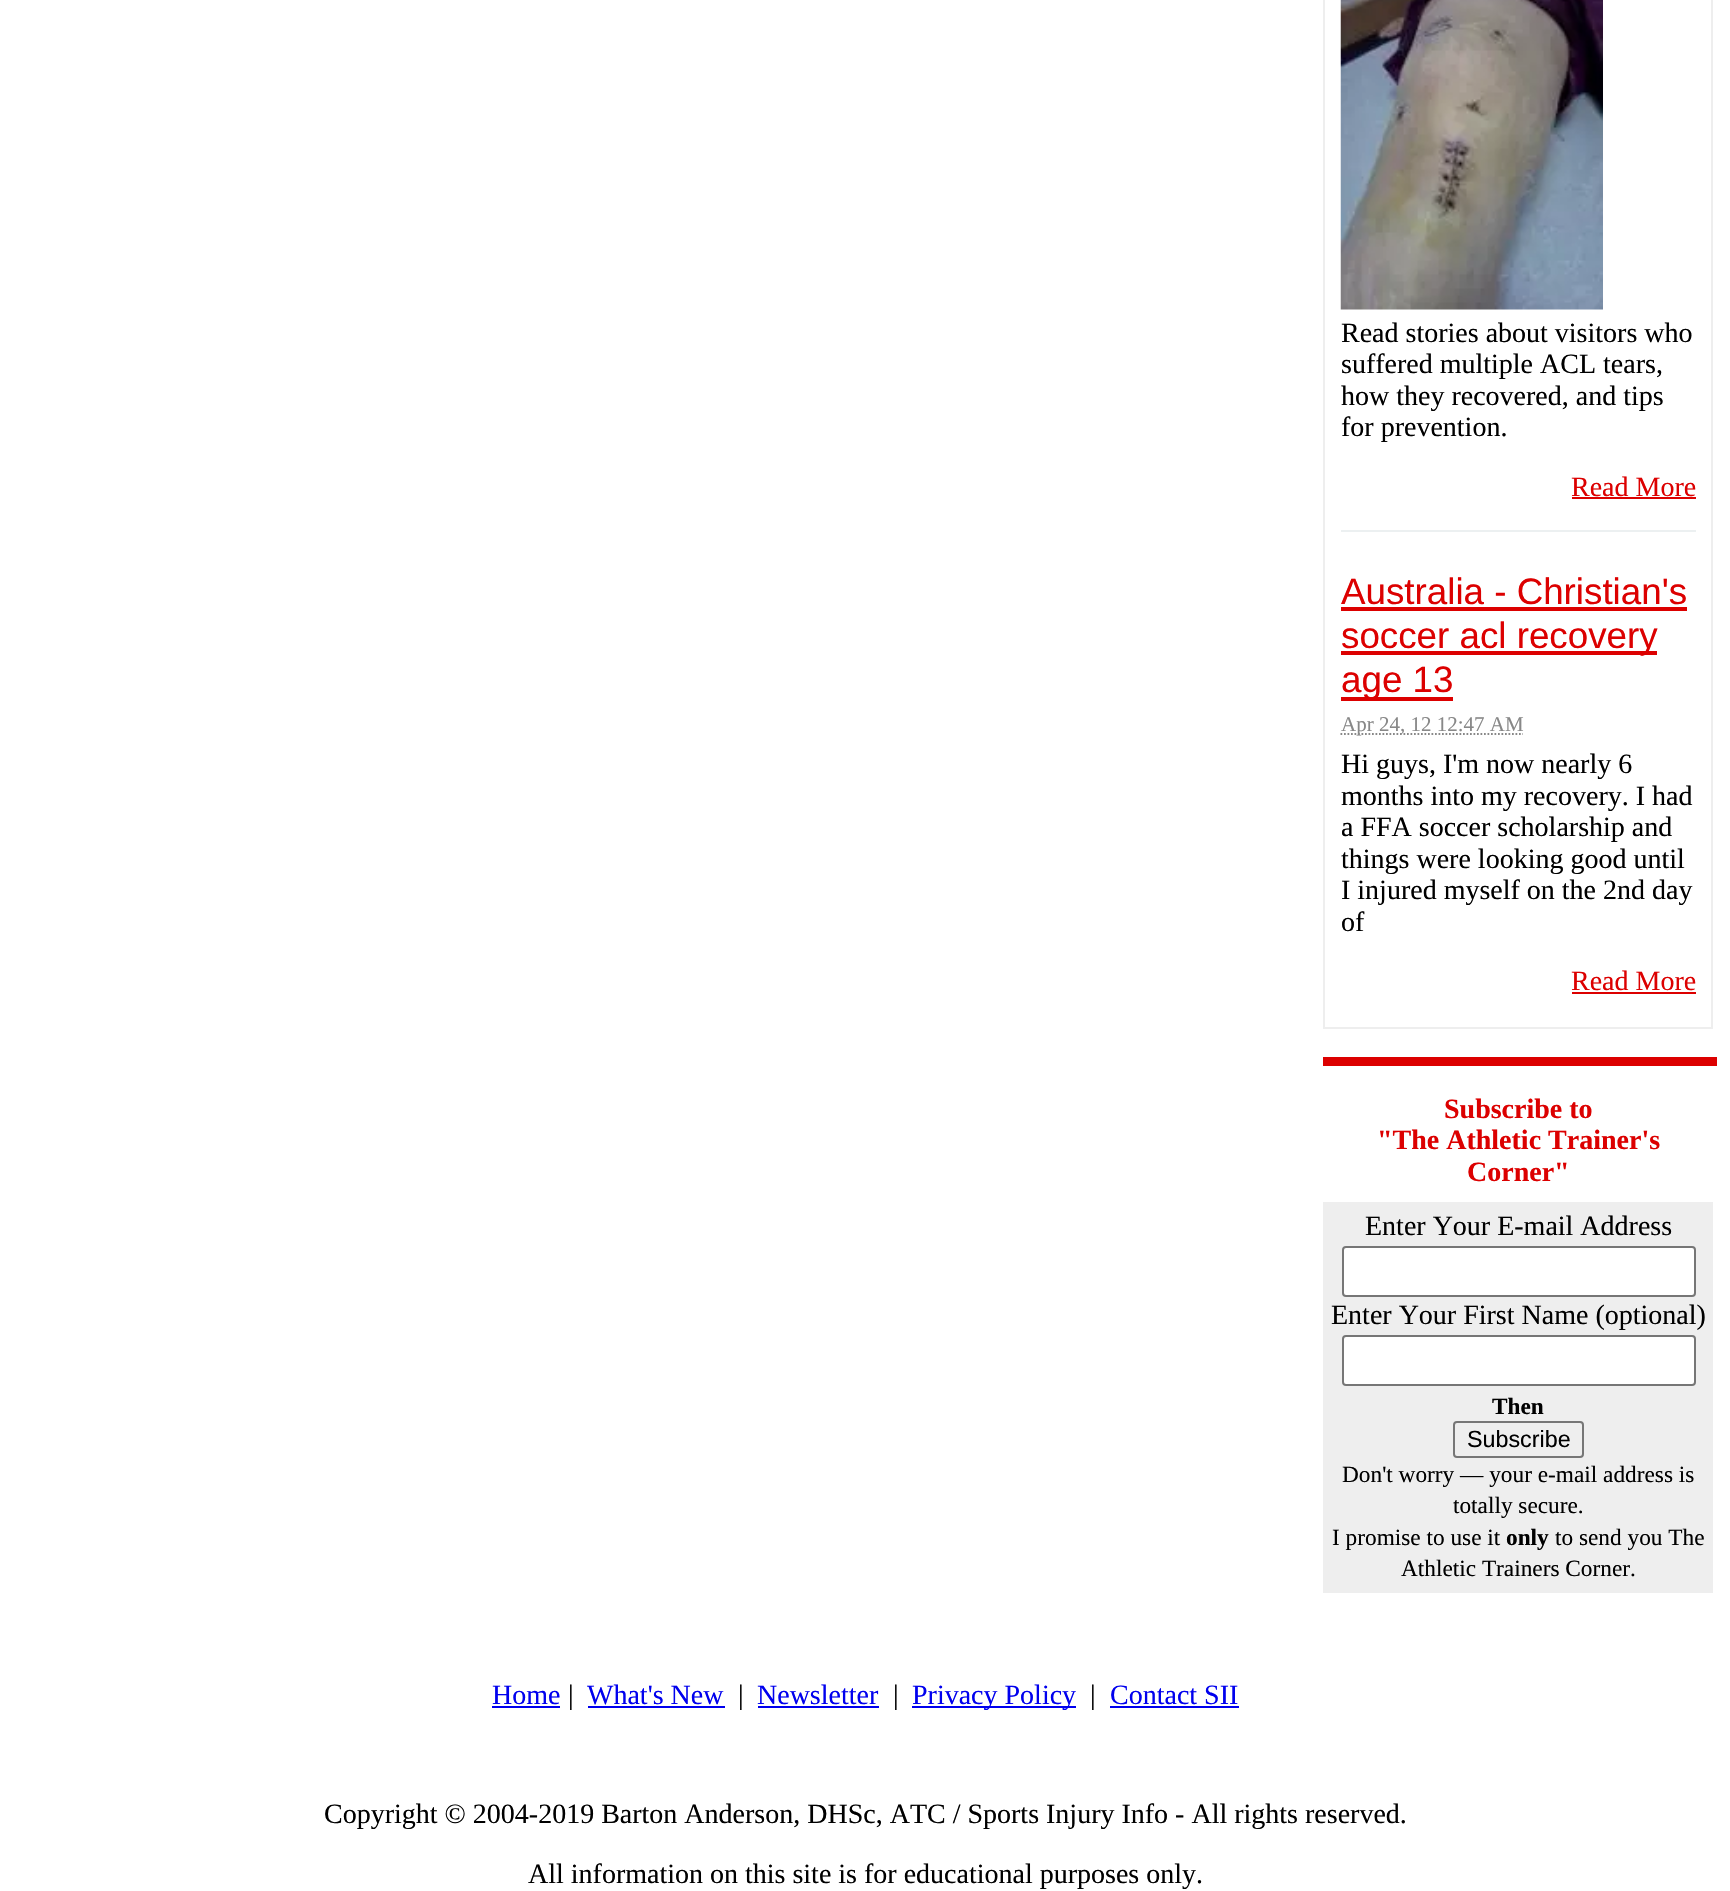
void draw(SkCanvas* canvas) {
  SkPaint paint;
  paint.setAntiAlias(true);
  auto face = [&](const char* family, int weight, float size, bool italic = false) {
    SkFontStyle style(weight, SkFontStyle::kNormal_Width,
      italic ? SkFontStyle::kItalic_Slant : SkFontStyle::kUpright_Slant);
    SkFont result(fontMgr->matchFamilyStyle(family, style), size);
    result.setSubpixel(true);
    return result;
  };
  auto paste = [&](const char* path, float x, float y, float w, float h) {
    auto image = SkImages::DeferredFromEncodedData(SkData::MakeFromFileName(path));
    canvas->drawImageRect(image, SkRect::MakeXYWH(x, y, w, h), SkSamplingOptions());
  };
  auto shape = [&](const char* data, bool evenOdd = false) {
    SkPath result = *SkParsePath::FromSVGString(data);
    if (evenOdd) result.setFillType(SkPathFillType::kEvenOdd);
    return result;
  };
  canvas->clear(0xffffffff);
  paint.setStroke(true);
  paint.setStrokeWidth(2);
  paint.setColor(0xffeeeeee);
  canvas->drawRect(SkRect::MakeXYWH(1324, -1, 388, 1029), paint);
  paste("img/1.png", 1340, 0, 263, 310);
  paint.setStroke(false);
  {
    const struct { float x, y, w, h; SkColor color; } items[] = {
      {1572, 497, 124, 2, 0xffdc0000},
      {1341, 530, 355, 2, 0xffecf0f1},
      {1341, 607, 346, 4, 0xffdc0000},
      {1341, 651, 316, 4, 0xffdc0000},
      {1341, 697, 112, 4, 0xffdc0000},
    };
    for (auto [x, y, w, h, color] : items) {
      paint.setColor(color);
      canvas->drawRect(SkRect::MakeXYWH(x, y, w, h), paint);
    }
  }
  paint.setStroke(true);
  paint.setStrokeWidth(1.8f);
  paint.setColor(0xff888888);
  paint.setPathEffect(SkDashPathEffect::Make({{1.75f, 1.75f}}, 0));
  canvas->drawPath(shape("M1340.5 734H1523"), paint);
  paint.setPathEffect(nullptr);
  paint.setStroke(false);
  {
    const struct { float x, y, w, h; SkColor color; } items[] = {
      {1572, 992, 124, 2, 0xffdc0000},
      {1323, 1057, 394, 9, 0xffdc0000},
      {1323, 1202, 390, 391, 0xffeeeeee},
    };
    for (auto [x, y, w, h, color] : items) {
      paint.setColor(color);
      canvas->drawRect(SkRect::MakeXYWH(x, y, w, h), paint);
    }
  }
  paint.setColor(0xffffffff);
  canvas->drawRoundRect(SkRect::MakeXYWH(1343, 1247, 352, 49), 3, 3, paint);
  paint.setStroke(true);
  paint.setStrokeWidth(2);
  paint.setColor(0xff767676);
  canvas->drawRoundRect(SkRect::MakeXYWH(1343, 1247, 352, 49), 3, 3, paint);
  paint.setStroke(false);
  paint.setColor(0xffffffff);
  canvas->drawRoundRect(SkRect::MakeXYWH(1343, 1336, 352, 49), 3, 3, paint);
  paint.setStroke(true);
  paint.setColor(0xff767676);
  canvas->drawRoundRect(SkRect::MakeXYWH(1343, 1336, 352, 49), 3, 3, paint);
  canvas->drawRoundRect(SkRect::MakeXYWH(1454, 1422, 129, 35), 3, 3, paint);
  paint.setStroke(false);
  {
    const struct { float x, y, w, h; SkColor color; } items[] = {
      {492, 1706, 68, 2, 0xff0000ee},
      {588, 1706, 137, 2, 0xff0000ee},
      {758, 1706, 121, 2, 0xff0000ee},
      {912, 1706, 164, 2, 0xff0000ee},
      {1110, 1706, 129, 2, 0xff0000ee},
    };
    for (auto [x, y, w, h, color] : items) {
      paint.setColor(color);
      canvas->drawRect(SkRect::MakeXYWH(x, y, w, h), paint);
    }
  }
  auto f0 = face("Liberation Serif", 400, 28);
  paint.setColor(0xff000000);
  {
    const struct { const char* s; float x, y; } items[] = {
      {"Read stories about visitors who", 1341, 342},
      {"suffered multiple ACL tears,", 1341, 373},
      {"how they recovered, and tips", 1341, 405},
      {"for prevention.", 1341, 436},
    };
    for (auto [s, x, y] : items) {
      canvas->drawString(s, x, y, f0, paint);
    }
  }
  paint.setColor(0xffdc0000);
  canvas->drawString("Read More", 1571, 496, f0, paint);
  auto f1 = face("Liberation Sans", 400, 36.75f);
  {
    const struct { const char* s; float x, y; } items[] = {
      {"Australia - Christian's", 1341, 604},
      {"soccer acl recovery", 1341, 648},
      {"age 13", 1341, 692},
    };
    for (auto [s, x, y] : items) {
      canvas->drawString(s, x, y, f1, paint);
    }
  }
  auto f2 = face("Liberation Serif", 400, 21);
  paint.setColor(0xff888888);
  canvas->drawString("Apr 24, 12 12:47 AM", 1341, 731, f2, paint);
  paint.setColor(0xff000000);
  {
    const struct { const char* s; float x, y; } items[] = {
      {"Hi guys, I'm now nearly 6", 1341, 773},
      {"months into my recovery. I had", 1341, 805},
      {"a FFA soccer scholarship and", 1341, 836},
      {"things were looking good until", 1341, 868},
      {"I injured myself on the 2nd day", 1341, 899},
      {"of", 1341, 931},
    };
    for (auto [s, x, y] : items) {
      canvas->drawString(s, x, y, f0, paint);
    }
  }
  paint.setColor(0xffdc0000);
  canvas->drawString("Read More", 1571, 990, f0, paint);
  auto f3 = face("Liberation Serif", 700, 28);
  {
    const struct { const char* s; float x, y; } items[] = {
      {"Subscribe to", 1444, 1118},
      {"\"The Athletic Trainer's", 1377, 1149},
      {"Corner\"", 1467, 1181},
    };
    for (auto [s, x, y] : items) {
      canvas->drawString(s, x, y, f3, paint);
    }
  }
  paint.setColor(0xff000000);
  canvas->drawString("Enter Your E-mail Address", 1365, 1235, f0, paint);
  canvas->drawString("Enter Your First Name (optional)", 1331, 1324, f0, paint);
  auto f4 = face("Liberation Serif", 700, 23.3f);
  canvas->drawString("Then", 1492, 1414, f4, paint);
  auto f5 = face("Liberation Sans", 400, 23.3f);
  canvas->drawString("Subscribe", 1467, 1447, f5, paint);
  auto f6 = face("Liberation Serif", 400, 23.3f);
  {
    const struct { const char* s; float x, y; } items[] = {
      {"Don't worry — your e-mail address is", 1342, 1482},
      {"totally secure.", 1453, 1513},
      {"I promise to use it", 1332, 1545},
    };
    for (auto [s, x, y] : items) {
      canvas->drawString(s, x, y, f6, paint);
    }
  }
  canvas->drawString("only", 1506, 1545, f4, paint);
  canvas->drawString("to send you The", 1555, 1545, f6, paint);
  canvas->drawString("Athletic Trainers Corner.", 1401, 1576, f6, paint);
  paint.setColor(0xff0000ee);
  canvas->drawString("Home", 492, 1704, f0, paint);
  paint.setColor(0xff000000);
  canvas->drawString("|", 568, 1704, f0, paint);
  paint.setColor(0xff0000ee);
  canvas->drawString("What's New", 587, 1704, f0, paint);
  paint.setColor(0xff000000);
  canvas->drawString("|", 738, 1704, f0, paint);
  paint.setColor(0xff0000ee);
  canvas->drawString("Newsletter", 757, 1704, f0, paint);
  paint.setColor(0xff000000);
  canvas->drawString("|", 893, 1704, f0, paint);
  paint.setColor(0xff0000ee);
  canvas->drawString("Privacy Policy", 912, 1704, f0, paint);
  paint.setColor(0xff000000);
  canvas->drawString("|", 1090, 1704, f0, paint);
  paint.setColor(0xff0000ee);
  canvas->drawString("Contact SII", 1110, 1704, f0, paint);
  paint.setColor(0xff000000);
  canvas->drawString("Copyright © 2004-2019 Barton Anderson, DHSc, ATC / Sports Injury Info - All rights reserved.", 324, 1823, f0, paint);
  canvas->drawString("All information on this site is for educational purposes only.", 528, 1883, f0, paint);
}
